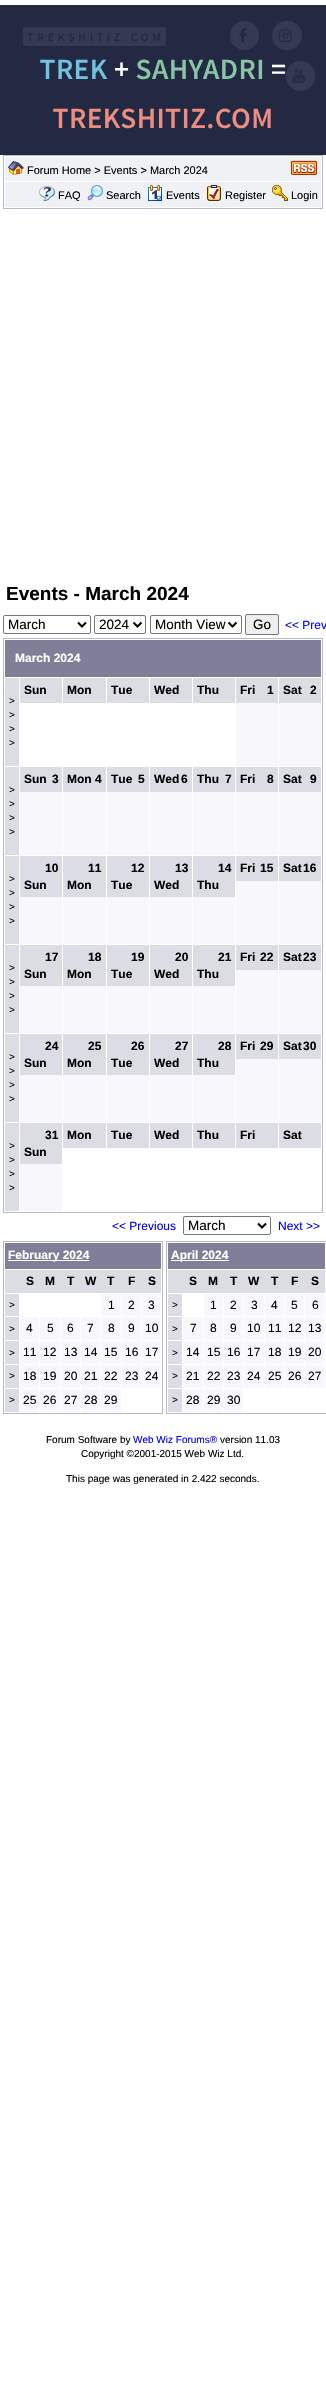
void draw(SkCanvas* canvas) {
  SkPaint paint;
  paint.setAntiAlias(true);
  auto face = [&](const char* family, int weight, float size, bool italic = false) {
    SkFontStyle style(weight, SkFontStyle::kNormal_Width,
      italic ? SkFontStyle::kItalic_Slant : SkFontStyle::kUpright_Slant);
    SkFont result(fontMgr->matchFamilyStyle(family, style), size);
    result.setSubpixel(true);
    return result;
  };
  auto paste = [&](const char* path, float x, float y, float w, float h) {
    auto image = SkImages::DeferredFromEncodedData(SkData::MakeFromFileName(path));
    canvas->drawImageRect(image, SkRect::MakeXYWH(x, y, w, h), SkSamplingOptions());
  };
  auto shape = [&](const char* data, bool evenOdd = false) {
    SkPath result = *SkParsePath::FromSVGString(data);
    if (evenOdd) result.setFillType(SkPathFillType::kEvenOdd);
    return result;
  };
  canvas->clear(0xffffffff);
  paste("img/1.png", 0, 5, 326, 150);
  paint.setStroke(true);
  paint.setStrokeWidth(1);
  paint.setColor(0xffb6b9cb);
  canvas->drawRect(SkRect::MakeXYWH(3.5f, 155.5f, 319, 53), paint);
  paint.setStroke(false);
  paint.setColor(0xfff0f1f5);
  canvas->drawRect(SkRect::MakeXYWH(5, 157, 316, 24), paint);
  paste("img/2.png", 8, 161, 16, 14);
  paste("img/3.png", 290, 160, 28, 16);
  canvas->drawRect(SkRect::MakeXYWH(5, 182, 316, 25), paint);
  paste("img/4.png", 39, 186, 16, 15);
  paste("img/5.png", 87, 185, 16, 16);
  paste("img/6.png", 148, 185, 14, 16);
  paste("img/7.png", 207, 185, 14, 16);
  paste("img/8.png", 272, 185, 16, 16);
  paint.setStroke(true);
  paint.setColor(0xff767676);
  canvas->drawRoundRect(SkRect::MakeXYWH(3.5f, 615.5f, 87, 18), 1.5f, 1.5f, paint);
  paint.setStrokeWidth(2);
  paint.setColor(0xff000000);
  canvas->drawPath(shape("M78 622.5L82 626.5L86 622.5"), paint);
  paint.setStrokeWidth(1);
  paint.setColor(0xff767676);
  canvas->drawRoundRect(SkRect::MakeXYWH(94.5f, 615.5f, 51, 18), 1.5f, 1.5f, paint);
  paint.setStrokeWidth(2);
  paint.setColor(0xff000000);
  canvas->drawPath(shape("M133.5 622.5L137.5 626.5L141.5 622.5"), paint);
  paint.setStrokeWidth(1);
  paint.setColor(0xff767676);
  canvas->drawRoundRect(SkRect::MakeXYWH(150.5f, 615.5f, 91, 18), 1.5f, 1.5f, paint);
  paint.setStrokeWidth(2);
  paint.setColor(0xff000000);
  canvas->drawPath(shape("M228.5 622.5L232.5 626.5L236.5 622.5"), paint);
  paint.setStroke(false);
  paint.setColor(0xffefefef);
  canvas->drawRoundRect(SkRect::MakeXYWH(245.5f, 614.5f, 33, 20), 1.5f, 1.5f, paint);
  paint.setStroke(true);
  paint.setStrokeWidth(1);
  paint.setColor(0xff767676);
  canvas->drawRoundRect(SkRect::MakeXYWH(245.5f, 614.5f, 33, 20), 1.5f, 1.5f, paint);
  paint.setColor(0xffb6b9cb);
  canvas->drawRect(SkRect::MakeXYWH(3.5f, 638.5f, 319, 574), paint);
  paint.setStroke(false);
  {
    const struct { float x, y, w, h; SkColor color; } items[] = {
      {5, 640, 316, 37, 0xff7f7f99},
      {20, 678, 42, 25, 0xffdcdde4},
      {63, 678, 43, 25, 0xffdcdde4},
      {107, 678, 42, 25, 0xffdcdde4},
      {150, 678, 42, 25, 0xffdcdde4},
      {193, 678, 42, 25, 0xffdcdde4},
      {236, 703, 42, 63, 0xfff8f8fc},
      {236, 678, 42, 25, 0xffdcdde4},
      {279, 703, 42, 63, 0xfff8f8fc},
      {279, 678, 42, 25, 0xffdcdde4},
      {5, 678, 14, 88, 0xffdcdde4},
      {20, 792, 42, 63, 0xfff8f8fc},
      {20, 767, 42, 25, 0xffdcdde4},
      {63, 792, 43, 63, 0xfff8f8fc},
      {63, 767, 43, 25, 0xffdcdde4},
      {107, 792, 42, 63, 0xfff8f8fc},
      {107, 767, 42, 25, 0xffdcdde4},
      {150, 792, 42, 63, 0xfff8f8fc},
      {150, 767, 42, 25, 0xffdcdde4},
      {193, 792, 42, 63, 0xfff8f8fc},
      {193, 767, 42, 25, 0xffdcdde4},
      {236, 792, 42, 63, 0xfff8f8fc},
      {236, 767, 42, 25, 0xffdcdde4},
      {279, 792, 42, 63, 0xfff8f8fc},
      {279, 767, 42, 25, 0xffdcdde4},
      {5, 767, 14, 88, 0xffdcdde4},
      {20, 897, 42, 47, 0xfff8f8fc},
      {20, 856, 42, 41, 0xffdcdde4},
      {63, 897, 43, 47, 0xfff8f8fc},
      {63, 856, 43, 41, 0xffdcdde4},
      {107, 897, 42, 47, 0xfff8f8fc},
      {107, 856, 42, 41, 0xffdcdde4},
      {150, 897, 42, 47, 0xfff8f8fc},
      {150, 856, 42, 41, 0xffdcdde4},
      {193, 897, 42, 47, 0xfff8f8fc},
      {193, 856, 42, 41, 0xffdcdde4},
      {236, 881, 42, 63, 0xfff8f8fc},
      {236, 856, 42, 25, 0xffdcdde4},
      {279, 881, 42, 63, 0xfff8f8fc},
      {279, 856, 42, 25, 0xffdcdde4},
      {5, 856, 14, 88, 0xffdcdde4},
      {20, 986, 42, 47, 0xfff8f8fc},
      {20, 945, 42, 41, 0xffdcdde4},
      {63, 986, 43, 47, 0xfff8f8fc},
      {63, 945, 43, 41, 0xffdcdde4},
      {107, 986, 42, 47, 0xfff8f8fc},
      {107, 945, 42, 41, 0xffdcdde4},
      {150, 986, 42, 47, 0xfff8f8fc},
      {150, 945, 42, 41, 0xffdcdde4},
      {193, 986, 42, 47, 0xfff8f8fc},
      {193, 945, 42, 41, 0xffdcdde4},
      {236, 970, 42, 63, 0xfff8f8fc},
      {236, 945, 42, 25, 0xffdcdde4},
      {279, 970, 42, 63, 0xfff8f8fc},
      {279, 945, 42, 25, 0xffdcdde4},
      {5, 945, 14, 88, 0xffdcdde4},
      {20, 1075, 42, 47, 0xfff8f8fc},
      {20, 1034, 42, 41, 0xffdcdde4},
      {63, 1075, 43, 47, 0xfff8f8fc},
      {63, 1034, 43, 41, 0xffdcdde4},
      {107, 1075, 42, 47, 0xfff8f8fc},
      {107, 1034, 42, 41, 0xffdcdde4},
      {150, 1075, 42, 47, 0xfff8f8fc},
      {150, 1034, 42, 41, 0xffdcdde4},
      {193, 1075, 42, 47, 0xfff8f8fc},
      {193, 1034, 42, 41, 0xffdcdde4},
      {236, 1059, 42, 63, 0xfff8f8fc},
      {236, 1034, 42, 25, 0xffdcdde4},
      {279, 1059, 42, 63, 0xfff8f8fc},
      {279, 1034, 42, 25, 0xffdcdde4},
      {5, 1034, 14, 88, 0xffdcdde4},
      {20, 1164, 42, 47, 0xfff8f8fc},
      {20, 1123, 42, 41, 0xffdcdde4},
      {63, 1123, 43, 25, 0xffdcdde4},
      {107, 1123, 42, 25, 0xffdcdde4},
      {150, 1123, 42, 25, 0xffdcdde4},
      {193, 1123, 42, 25, 0xffdcdde4},
      {236, 1123, 42, 25, 0xffdcdde4},
      {279, 1123, 42, 25, 0xffdcdde4},
      {5, 1123, 14, 88, 0xffdcdde4},
    };
    for (auto [x, y, w, h, color] : items) {
      paint.setColor(color);
      canvas->drawRect(SkRect::MakeXYWH(x, y, w, h), paint);
    }
  }
  paint.setStroke(true);
  paint.setColor(0xff767676);
  canvas->drawRoundRect(SkRect::MakeXYWH(183.5f, 1216.5f, 87, 18), 1.5f, 1.5f, paint);
  paint.setStrokeWidth(2);
  paint.setColor(0xff000000);
  canvas->drawPath(shape("M258 1223.5L262 1227.5L266 1223.5"), paint);
  paint.setStrokeWidth(1);
  paint.setColor(0xffb6b9cb);
  canvas->drawRect(SkRect::MakeXYWH(3.5f, 1241.5f, 159, 172), paint);
  paint.setStroke(false);
  {
    const struct { float x, y, w, h; SkColor color; } items[] = {
      {5, 1243, 156, 26, 0xff7f7f99},
      {8, 1260, 81, 1, 0xffffffff},
      {5, 1270, 156, 23, 0xffdcdde4},
      {5, 1294, 14, 22, 0xffdcdde4},
      {101, 1294, 20, 22, 0xfff8f8fc},
      {122, 1294, 19, 22, 0xfff8f8fc},
      {142, 1294, 19, 22, 0xfff8f8fc},
      {5, 1317, 14, 23, 0xffdcdde4},
      {20, 1317, 19, 23, 0xfff8f8fc},
      {40, 1317, 20, 23, 0xfff8f8fc},
      {61, 1317, 19, 23, 0xfff8f8fc},
      {81, 1317, 19, 23, 0xfff8f8fc},
      {101, 1317, 20, 23, 0xfff8f8fc},
      {122, 1317, 19, 23, 0xfff8f8fc},
      {142, 1317, 19, 23, 0xfff8f8fc},
      {5, 1341, 14, 23, 0xffdcdde4},
      {20, 1341, 19, 23, 0xfff8f8fc},
      {40, 1341, 20, 23, 0xfff8f8fc},
      {61, 1341, 19, 23, 0xfff8f8fc},
      {81, 1341, 19, 23, 0xfff8f8fc},
      {101, 1341, 20, 23, 0xfff8f8fc},
      {122, 1341, 19, 23, 0xfff8f8fc},
      {142, 1341, 19, 23, 0xfff8f8fc},
      {5, 1365, 14, 23, 0xffdcdde4},
      {20, 1365, 19, 23, 0xfff8f8fc},
      {40, 1365, 20, 23, 0xfff8f8fc},
      {61, 1365, 19, 23, 0xfff8f8fc},
      {81, 1365, 19, 23, 0xfff8f8fc},
      {101, 1365, 20, 23, 0xfff8f8fc},
      {122, 1365, 19, 23, 0xfff8f8fc},
      {142, 1365, 19, 23, 0xfff8f8fc},
      {5, 1389, 14, 23, 0xffdcdde4},
      {20, 1389, 19, 23, 0xfff8f8fc},
      {40, 1389, 20, 23, 0xfff8f8fc},
      {61, 1389, 19, 23, 0xfff8f8fc},
      {81, 1389, 19, 23, 0xfff8f8fc},
      {101, 1389, 20, 23, 0xfff8f8fc},
    };
    for (auto [x, y, w, h, color] : items) {
      paint.setColor(color);
      canvas->drawRect(SkRect::MakeXYWH(x, y, w, h), paint);
    }
  }
  paint.setStroke(true);
  paint.setColor(0xffb6b9cb);
  canvas->drawRect(SkRect::MakeXYWH(166.5f, 1241.5f, 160, 172), paint);
  paint.setStroke(false);
  {
    const struct { float x, y, w, h; SkColor color; } items[] = {
      {168, 1243, 157, 26, 0xff7f7f99},
      {171, 1260, 58, 1, 0xffffffff},
      {168, 1270, 157, 23, 0xffdcdde4},
      {168, 1294, 14, 22, 0xffdcdde4},
      {204, 1294, 19, 22, 0xfff8f8fc},
      {224, 1294, 19, 22, 0xfff8f8fc},
      {244, 1294, 20, 22, 0xfff8f8fc},
      {265, 1294, 19, 22, 0xfff8f8fc},
      {285, 1294, 19, 22, 0xfff8f8fc},
      {305, 1294, 20, 22, 0xfff8f8fc},
      {168, 1317, 14, 23, 0xffdcdde4},
      {183, 1317, 20, 23, 0xfff8f8fc},
      {204, 1317, 19, 23, 0xfff8f8fc},
      {224, 1317, 19, 23, 0xfff8f8fc},
      {244, 1317, 20, 23, 0xfff8f8fc},
      {265, 1317, 19, 23, 0xfff8f8fc},
      {285, 1317, 19, 23, 0xfff8f8fc},
      {305, 1317, 20, 23, 0xfff8f8fc},
      {168, 1341, 14, 23, 0xffdcdde4},
      {183, 1341, 20, 23, 0xfff8f8fc},
      {204, 1341, 19, 23, 0xfff8f8fc},
      {224, 1341, 19, 23, 0xfff8f8fc},
      {244, 1341, 20, 23, 0xfff8f8fc},
      {265, 1341, 19, 23, 0xfff8f8fc},
      {285, 1341, 19, 23, 0xfff8f8fc},
      {305, 1341, 20, 23, 0xfff8f8fc},
      {168, 1365, 14, 23, 0xffdcdde4},
      {183, 1365, 20, 23, 0xfff8f8fc},
      {204, 1365, 19, 23, 0xfff8f8fc},
      {224, 1365, 19, 23, 0xfff8f8fc},
      {244, 1365, 20, 23, 0xfff8f8fc},
      {265, 1365, 19, 23, 0xfff8f8fc},
      {285, 1365, 19, 23, 0xfff8f8fc},
      {305, 1365, 20, 23, 0xfff8f8fc},
      {168, 1389, 14, 23, 0xffdcdde4},
      {183, 1389, 20, 23, 0xfff8f8fc},
      {204, 1389, 19, 23, 0xfff8f8fc},
      {224, 1389, 19, 23, 0xfff8f8fc},
    };
    for (auto [x, y, w, h, color] : items) {
      paint.setColor(color);
      canvas->drawRect(SkRect::MakeXYWH(x, y, w, h), paint);
    }
  }
  auto f0 = face("Liberation Sans", 400, 11);
  paint.setColor(0xff000000);
  {
    const struct { const char* s; float x, y; } items[] = {
      {"Forum Home > Events > March 2024", 27, 174},
      {"FAQ", 58, 199},
      {"Search", 106, 199},
      {"Events", 166, 199},
      {"Register", 225, 199},
      {"Login", 291, 199},
    };
    for (auto [s, x, y] : items) {
      canvas->drawString(s, x, y, f0, paint);
    }
  }
  auto f1 = face("Liberation Sans", 700, 19);
  canvas->drawString("Events - March 2024", 6, 600, f1, paint);
  auto f2 = face("Liberation Sans", 400, 13.5f);
  {
    const struct { const char* s; float x, y; } items[] = {
      {"March", 8, 629},
      {"2024", 99, 629},
      {"Month View", 155, 629},
      {"Go", 253, 629},
    };
    for (auto [s, x, y] : items) {
      canvas->drawString(s, x, y, f2, paint);
    }
  }
  auto f3 = face("Liberation Sans", 400, 12);
  paint.setColor(0xff0000ff);
  canvas->drawString("<< Prev", 285, 629, f3, paint);
  auto f4 = face("Liberation Sans", 700, 12);
  paint.setColor(0xffffffff);
  canvas->drawString("March 2024", 15, 662, f4, paint);
  paint.setColor(0xff000000);
  {
    const struct { const char* s; float x, y; } items[] = {
      {"Sun", 24, 694},
      {"Mon", 67, 694},
      {"Tue", 111, 694},
      {"Wed", 154, 694},
      {"Thu", 197, 694},
      {"Fri", 240, 694},
      {"1", 267, 694},
      {"Sat", 283, 694},
      {"2", 310, 694},
    };
    for (auto [s, x, y] : items) {
      canvas->drawString(s, x, y, f4, paint);
    }
  }
  auto f5 = face("Liberation Sans", 400, 10);
  {
    const struct { const char* s; float x, y; } items[] = {
      {">", 9, 704},
      {">", 9, 718},
      {">", 9, 732},
      {">", 9, 746},
    };
    for (auto [s, x, y] : items) {
      canvas->drawString(s, x, y, f5, paint);
    }
  }
  {
    const struct { const char* s; float x, y; } items[] = {
      {"Sun", 24, 783},
      {"3", 52, 783},
      {"Mon", 67, 783},
      {"4", 95, 783},
      {"Tue", 111, 783},
      {"5", 138, 783},
      {"Wed", 154, 783},
      {"6", 181, 783},
      {"Thu", 197, 783},
      {"7", 225, 783},
      {"Fri", 240, 783},
      {"8", 267, 783},
      {"Sat", 283, 783},
      {"9", 310, 783},
    };
    for (auto [s, x, y] : items) {
      canvas->drawString(s, x, y, f4, paint);
    }
  }
  {
    const struct { const char* s; float x, y; } items[] = {
      {">", 9, 793},
      {">", 9, 807},
      {">", 9, 821},
      {">", 9, 835},
    };
    for (auto [s, x, y] : items) {
      canvas->drawString(s, x, y, f5, paint);
    }
  }
  {
    const struct { const char* s; float x, y; } items[] = {
      {"10", 45, 872},
      {"Sun", 24, 889},
      {"11", 88, 872},
      {"Mon", 67, 889},
      {"12", 131, 872},
      {"Tue", 111, 889},
      {"13", 175, 872},
      {"Wed", 154, 889},
      {"14", 218, 872},
      {"Thu", 197, 889},
      {"Fri", 240, 872},
      {"15", 260, 872},
      {"Sat", 283, 872},
      {"16", 303, 872},
    };
    for (auto [s, x, y] : items) {
      canvas->drawString(s, x, y, f4, paint);
    }
  }
  {
    const struct { const char* s; float x, y; } items[] = {
      {">", 9, 882},
      {">", 9, 896},
      {">", 9, 910},
      {">", 9, 924},
    };
    for (auto [s, x, y] : items) {
      canvas->drawString(s, x, y, f5, paint);
    }
  }
  {
    const struct { const char* s; float x, y; } items[] = {
      {"17", 45, 961},
      {"Sun", 24, 978},
      {"18", 88, 961},
      {"Mon", 67, 978},
      {"19", 131, 961},
      {"Tue", 111, 978},
      {"20", 175, 961},
      {"Wed", 154, 978},
      {"21", 218, 961},
      {"Thu", 197, 978},
      {"Fri", 240, 961},
      {"22", 260, 961},
      {"Sat", 283, 961},
      {"23", 303, 961},
    };
    for (auto [s, x, y] : items) {
      canvas->drawString(s, x, y, f4, paint);
    }
  }
  {
    const struct { const char* s; float x, y; } items[] = {
      {">", 9, 971},
      {">", 9, 985},
      {">", 9, 999},
      {">", 9, 1013},
    };
    for (auto [s, x, y] : items) {
      canvas->drawString(s, x, y, f5, paint);
    }
  }
  {
    const struct { const char* s; float x, y; } items[] = {
      {"24", 45, 1050},
      {"Sun", 24, 1067},
      {"25", 88, 1050},
      {"Mon", 67, 1067},
      {"26", 131, 1050},
      {"Tue", 111, 1067},
      {"27", 175, 1050},
      {"Wed", 154, 1067},
      {"28", 218, 1050},
      {"Thu", 197, 1067},
      {"Fri", 240, 1050},
      {"29", 260, 1050},
      {"Sat", 283, 1050},
      {"30", 303, 1050},
    };
    for (auto [s, x, y] : items) {
      canvas->drawString(s, x, y, f4, paint);
    }
  }
  {
    const struct { const char* s; float x, y; } items[] = {
      {">", 9, 1060},
      {">", 9, 1074},
      {">", 9, 1088},
      {">", 9, 1102},
    };
    for (auto [s, x, y] : items) {
      canvas->drawString(s, x, y, f5, paint);
    }
  }
  {
    const struct { const char* s; float x, y; } items[] = {
      {"31", 45, 1139},
      {"Sun", 24, 1156},
      {"Mon", 67, 1139},
      {"Tue", 111, 1139},
      {"Wed", 154, 1139},
      {"Thu", 197, 1139},
      {"Fri", 240, 1139},
      {"Sat", 283, 1139},
    };
    for (auto [s, x, y] : items) {
      canvas->drawString(s, x, y, f4, paint);
    }
  }
  {
    const struct { const char* s; float x, y; } items[] = {
      {">", 9, 1149},
      {">", 9, 1163},
      {">", 9, 1177},
      {">", 9, 1191},
    };
    for (auto [s, x, y] : items) {
      canvas->drawString(s, x, y, f5, paint);
    }
  }
  paint.setColor(0xff0000ff);
  canvas->drawString("<< Previous", 112, 1230, f3, paint);
  paint.setColor(0xff000000);
  canvas->drawString("March", 188, 1230, f2, paint);
  paint.setColor(0xff0000ff);
  canvas->drawString("Next >>", 278, 1230, f3, paint);
  paint.setColor(0xffffffff);
  canvas->drawString("February 2024", 8, 1259, f4, paint);
  paint.setColor(0xff000000);
  {
    const struct { const char* s; float x, y; } items[] = {
      {"S", 26, 1285},
      {"M", 45, 1285},
      {"T", 67, 1285},
      {"W", 85, 1285},
      {"T", 107, 1285},
      {"F", 128, 1285},
      {"S", 148, 1285},
    };
    for (auto [s, x, y] : items) {
      canvas->drawString(s, x, y, f4, paint);
    }
  }
  canvas->drawString(">", 9, 1308, f5, paint);
  {
    const struct { const char* s; float x, y; } items[] = {
      {"1", 108, 1309},
      {"2", 128, 1309},
      {"3", 148, 1309},
    };
    for (auto [s, x, y] : items) {
      canvas->drawString(s, x, y, f3, paint);
    }
  }
  canvas->drawString(">", 9, 1332, f5, paint);
  {
    const struct { const char* s; float x, y; } items[] = {
      {"4", 26, 1332},
      {"5", 47, 1332},
      {"6", 67, 1332},
      {"7", 87, 1332},
      {"8", 108, 1332},
      {"9", 128, 1332},
      {"10", 145, 1332},
    };
    for (auto [s, x, y] : items) {
      canvas->drawString(s, x, y, f3, paint);
    }
  }
  canvas->drawString(">", 9, 1356, f5, paint);
  {
    const struct { const char* s; float x, y; } items[] = {
      {"11", 23, 1356},
      {"12", 43, 1356},
      {"13", 64, 1356},
      {"14", 84, 1356},
      {"15", 104, 1356},
      {"16", 125, 1356},
      {"17", 145, 1356},
    };
    for (auto [s, x, y] : items) {
      canvas->drawString(s, x, y, f3, paint);
    }
  }
  canvas->drawString(">", 9, 1379, f5, paint);
  {
    const struct { const char* s; float x, y; } items[] = {
      {"18", 23, 1380},
      {"19", 43, 1380},
      {"20", 64, 1380},
      {"21", 84, 1380},
      {"22", 104, 1380},
      {"23", 125, 1380},
      {"24", 145, 1380},
    };
    for (auto [s, x, y] : items) {
      canvas->drawString(s, x, y, f3, paint);
    }
  }
  canvas->drawString(">", 9, 1403, f5, paint);
  {
    const struct { const char* s; float x, y; } items[] = {
      {"25", 23, 1404},
      {"26", 43, 1404},
      {"27", 64, 1404},
      {"28", 84, 1404},
      {"29", 104, 1404},
    };
    for (auto [s, x, y] : items) {
      canvas->drawString(s, x, y, f3, paint);
    }
  }
  paint.setColor(0xffffffff);
  canvas->drawString("April 2024", 171, 1259, f4, paint);
  paint.setColor(0xff000000);
  {
    const struct { const char* s; float x, y; } items[] = {
      {"S", 189, 1285},
      {"M", 208, 1285},
      {"T", 230, 1285},
      {"W", 248, 1285},
      {"T", 271, 1285},
      {"F", 291, 1285},
      {"S", 311, 1285},
    };
    for (auto [s, x, y] : items) {
      canvas->drawString(s, x, y, f4, paint);
    }
  }
  canvas->drawString(">", 172, 1308, f5, paint);
  {
    const struct { const char* s; float x, y; } items[] = {
      {"1", 210, 1309},
      {"2", 230, 1309},
      {"3", 251, 1309},
      {"4", 271, 1309},
      {"5", 291, 1309},
      {"6", 312, 1309},
    };
    for (auto [s, x, y] : items) {
      canvas->drawString(s, x, y, f3, paint);
    }
  }
  canvas->drawString(">", 172, 1332, f5, paint);
  {
    const struct { const char* s; float x, y; } items[] = {
      {"7", 190, 1332},
      {"8", 210, 1332},
      {"9", 230, 1332},
      {"10", 247, 1332},
      {"11", 268, 1332},
      {"12", 288, 1332},
      {"13", 308, 1332},
    };
    for (auto [s, x, y] : items) {
      canvas->drawString(s, x, y, f3, paint);
    }
  }
  canvas->drawString(">", 172, 1356, f5, paint);
  {
    const struct { const char* s; float x, y; } items[] = {
      {"14", 186, 1356},
      {"15", 207, 1356},
      {"16", 227, 1356},
      {"17", 247, 1356},
      {"18", 268, 1356},
      {"19", 288, 1356},
      {"20", 308, 1356},
    };
    for (auto [s, x, y] : items) {
      canvas->drawString(s, x, y, f3, paint);
    }
  }
  canvas->drawString(">", 172, 1379, f5, paint);
  {
    const struct { const char* s; float x, y; } items[] = {
      {"21", 186, 1380},
      {"22", 207, 1380},
      {"23", 227, 1380},
      {"24", 247, 1380},
      {"25", 268, 1380},
      {"26", 288, 1380},
      {"27", 308, 1380},
    };
    for (auto [s, x, y] : items) {
      canvas->drawString(s, x, y, f3, paint);
    }
  }
  canvas->drawString(">", 172, 1403, f5, paint);
  {
    const struct { const char* s; float x, y; } items[] = {
      {"28", 186, 1404},
      {"29", 207, 1404},
      {"30", 227, 1404},
    };
    for (auto [s, x, y] : items) {
      canvas->drawString(s, x, y, f3, paint);
    }
  }
  canvas->drawString("Forum Software by", 46, 1443, f5, paint);
  paint.setColor(0xff0000ff);
  canvas->drawString("Web Wiz Forums®", 133, 1443, f5, paint);
  paint.setColor(0xff000000);
  {
    const struct { const char* s; float x, y; } items[] = {
      {"version 11.03", 220, 1443},
      {"Copyright ©2001-2015 Web Wiz Ltd.", 81, 1457},
      {"This page was generated in 2.422 seconds.", 66, 1482},
    };
    for (auto [s, x, y] : items) {
      canvas->drawString(s, x, y, f5, paint);
    }
  }
}
